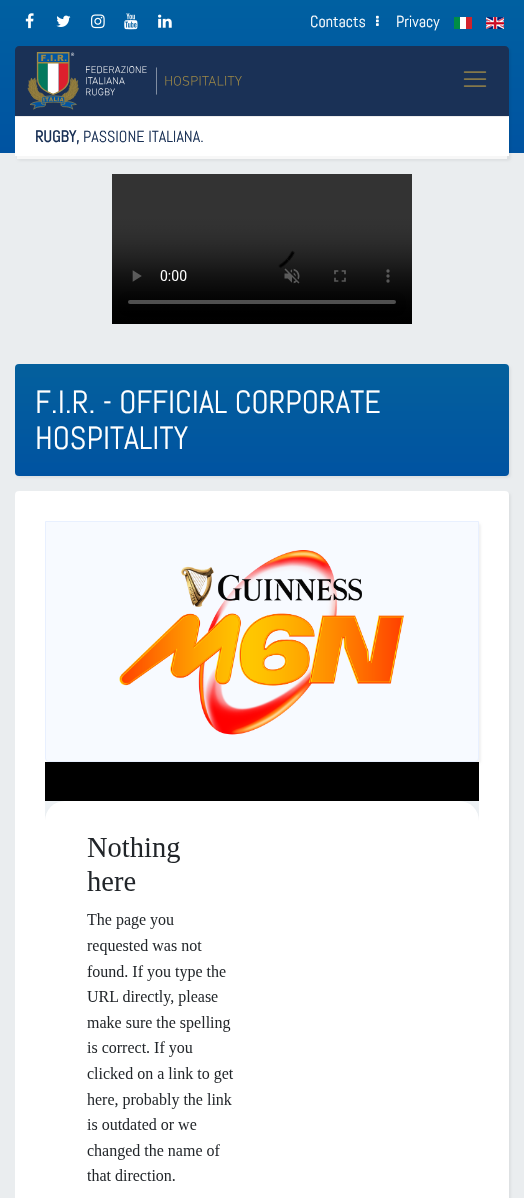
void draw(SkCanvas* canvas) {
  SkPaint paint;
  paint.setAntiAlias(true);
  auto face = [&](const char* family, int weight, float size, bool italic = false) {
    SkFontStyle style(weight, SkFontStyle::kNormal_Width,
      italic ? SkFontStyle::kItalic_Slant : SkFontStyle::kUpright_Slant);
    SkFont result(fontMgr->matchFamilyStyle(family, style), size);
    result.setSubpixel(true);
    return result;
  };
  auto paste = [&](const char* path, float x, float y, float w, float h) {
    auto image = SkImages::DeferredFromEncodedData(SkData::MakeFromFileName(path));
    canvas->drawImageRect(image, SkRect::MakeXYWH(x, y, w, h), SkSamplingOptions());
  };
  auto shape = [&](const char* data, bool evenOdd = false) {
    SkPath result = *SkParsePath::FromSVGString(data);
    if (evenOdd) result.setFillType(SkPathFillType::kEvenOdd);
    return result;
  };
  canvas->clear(0xffeaedef);
  {
    const SkColor colors[] = {0xff0060a1, 0xff0053a1};
    const float stops[] = {0, 1};
    const SkPoint ends[] = {{262, 0}, {262, 153}};
    paint.setShader(SkGradientShader::MakeLinear(ends, colors, stops, 2, SkTileMode::kClamp));
    paint.setAlpha(255);
  }
  canvas->drawRect(SkRect::MakeXYWH(0, 0, 524, 153), paint);
  paste("img/1.png", 25, 13, 9, 16);
  paste("img/2.png", 56, 15, 15, 12);
  paste("img/3.png", 91, 14, 14, 15);
  paste("img/4.png", 124, 13, 14, 17);
  paste("img/5.png", 158, 14, 14, 14);
  paste("img/6.png", 376, 15, 3, 11);
  paste("img/7.png", 454, 17, 18, 12);
  paste("img/8.png", 486, 17, 18, 12);
  paint.setShader(nullptr);
  paint.setColor(0x0d000000);
  paint.setMaskFilter(SkMaskFilter::MakeBlur(kNormal_SkBlurStyle, 1));
  canvas->drawRoundRect(SkRect::MakeXYWH(17, 48, 494, 113), 4, 4, paint);
  paint.setMaskFilter(nullptr);
  paint.setColor(0xfff7f7f7);
  canvas->drawRect(SkRect::MakeXYWH(17, 156, 490, 3), paint);
  paint.setColor(0xff1a3156);
  canvas->drawPath(shape("M19 46H505C507 46 509 48 509 50V116H15V50C15 48 17 46 19 46Z"), paint);
  paste("img/9.png", 27, 52, 215, 58);
  paste("img/10.png", 463, 71, 24, 16);
  paint.setColor(0xffffffff);
  canvas->drawRect(SkRect::MakeXYWH(15, 117, 494, 39), paint);
  paint.setColor(0xffececec);
  canvas->drawRect(SkRect::MakeXYWH(15, 116, 494, 1), paint);
  paste("img/11.png", 112, 174, 300, 150);
  paint.setColor(0x0d000000);
  paint.setMaskFilter(SkMaskFilter::MakeBlur(kNormal_SkBlurStyle, 1));
  canvas->drawRoundRect(SkRect::MakeXYWH(17, 366, 494, 112), 4, 4, paint);
  paint.setMaskFilter(nullptr);
  {
    const SkColor colors[] = {0xff04609d, 0xff0053a1};
    const float stops[] = {0, 1};
    const SkPoint ends[] = {{262, 364}, {262, 476}};
    paint.setShader(SkGradientShader::MakeLinear(ends, colors, stops, 2, SkTileMode::kClamp));
    paint.setAlpha(255);
  }
  canvas->drawRoundRect(SkRect::MakeXYWH(15, 364, 494, 112), 4, 4, paint);
  paint.setShader(nullptr);
  paint.setColor(0x0d000000);
  paint.setMaskFilter(SkMaskFilter::MakeBlur(kNormal_SkBlurStyle, 1));
  canvas->drawRoundRect(SkRect::MakeXYWH(17, 493, 494, 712), 4, 4, paint);
  paint.setMaskFilter(nullptr);
  paint.setColor(0xffffffff);
  canvas->drawRoundRect(SkRect::MakeXYWH(15, 491, 494, 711), 4, 4, paint);
  paste("img/13.png", 45, 762, 434, 419);
  paint.setColor(0x0d000000);
  paint.setMaskFilter(SkMaskFilter::MakeBlur(kNormal_SkBlurStyle, 1));
  canvas->drawRoundRect(SkRect::MakeXYWH(47, 523, 434, 241), 4, 4, paint);
  paint.setMaskFilter(nullptr);
  paint.setColor(0xfff7faff);
  canvas->drawPath(shape("M45.5 521.5H478.5V758C478.5 760 477 761.5 475 761.5H49C47 761.5 45.5 760 45.5 758Z"), paint);
  paint.setStroke(true);
  paint.setStrokeWidth(1);
  paint.setColor(0xffe8f0ff);
  canvas->drawPath(shape("M45.5 521.5H478.5V758C478.5 760 477 761.5 475 761.5H49C47 761.5 45.5 760 45.5 758Z"), paint);
  paste("img/12.png", 119, 550, 285, 185);
  auto f0 = face("Abel", 400, 16);
  paint.setStroke(false);
  paint.setColor(0xffffffff);
  canvas->drawString("Contacts", 310, 27, f0, paint);
  canvas->drawString("Privacy", 396, 27, f0, paint);
  auto f1 = face("Abel", 700, 16);
  paint.setColor(0xff1a3156);
  canvas->drawString("RUGBY,", 35, 142, f1, paint);
  canvas->drawString("PASSIONE ITALIANA.", 83, 142, f0, paint);
  auto f2 = face("Abel", 400, 32);
  paint.setColor(0xffffffff);
  canvas->drawString("F.I.R. - OFFICIAL CORPORATE", 35, 413, f2, paint);
  canvas->drawString("HOSPITALITY", 35, 449, f2, paint);
}
